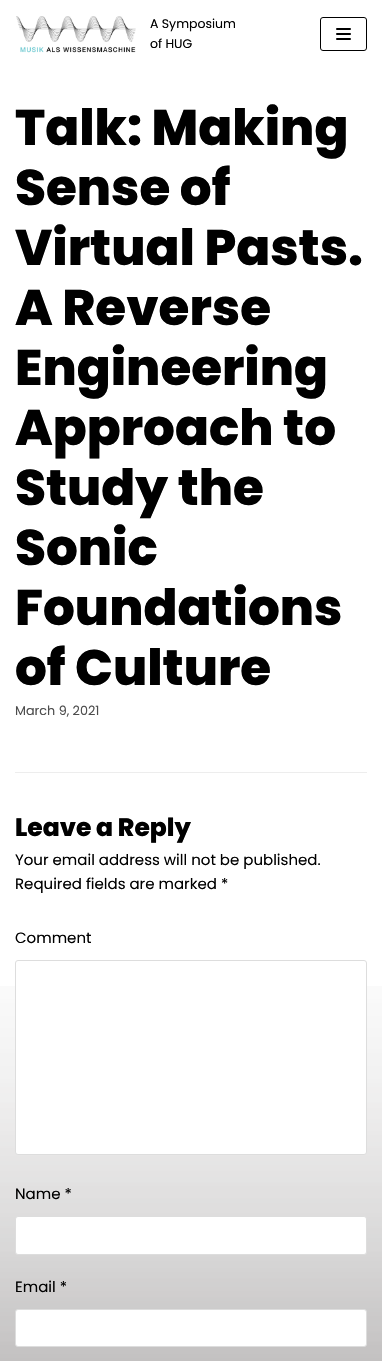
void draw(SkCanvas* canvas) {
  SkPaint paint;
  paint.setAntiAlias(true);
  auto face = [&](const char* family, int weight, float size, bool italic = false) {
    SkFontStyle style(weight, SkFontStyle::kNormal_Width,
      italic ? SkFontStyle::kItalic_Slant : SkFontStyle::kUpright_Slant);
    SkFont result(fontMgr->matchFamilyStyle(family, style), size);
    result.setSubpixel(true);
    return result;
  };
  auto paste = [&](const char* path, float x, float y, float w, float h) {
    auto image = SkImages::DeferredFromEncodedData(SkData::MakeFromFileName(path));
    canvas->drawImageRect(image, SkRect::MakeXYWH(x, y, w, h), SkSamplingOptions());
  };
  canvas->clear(0xffffffff);
  paste("img/1.png", 0, 986, 382, 375);
  paste("img/2.png", 16, 16, 120, 37);
  paint.setStroke(true);
  paint.setStrokeWidth(1);
  paint.setColor(0xff000000);
  canvas->drawRoundRect(SkRect::MakeXYWH(320.5f, 17.5f, 46, 33), 2.5f, 2.5f, paint);
  paint.setStroke(false);
  canvas->drawRoundRect(SkRect::MakeXYWH(336, 28, 15, 2), 1, 1, paint);
  canvas->drawRoundRect(SkRect::MakeXYWH(336, 33, 15, 2), 1, 1, paint);
  canvas->drawRoundRect(SkRect::MakeXYWH(336, 38, 15, 2), 1, 1, paint);
  paint.setColor(0xffededed);
  canvas->drawRect(SkRect::MakeXYWH(15, 772, 352, 1), paint);
  paint.setColor(0xffffffff);
  canvas->drawRoundRect(SkRect::MakeXYWH(15.5f, 960.5f, 351, 194), 2.5f, 2.5f, paint);
  paint.setStroke(true);
  paint.setColor(0xffdddddd);
  canvas->drawRoundRect(SkRect::MakeXYWH(15.5f, 960.5f, 351, 194), 2.5f, 2.5f, paint);
  paint.setStroke(false);
  paint.setColor(0xffffffff);
  canvas->drawRoundRect(SkRect::MakeXYWH(15.5f, 1216.5f, 351, 38), 2.5f, 2.5f, paint);
  paint.setStroke(true);
  paint.setColor(0xffdddddd);
  canvas->drawRoundRect(SkRect::MakeXYWH(15.5f, 1216.5f, 351, 38), 2.5f, 2.5f, paint);
  paint.setStroke(false);
  paint.setColor(0xffffffff);
  canvas->drawRoundRect(SkRect::MakeXYWH(15.5f, 1309.5f, 351, 37), 2.5f, 2.5f, paint);
  paint.setStroke(true);
  paint.setColor(0xffdddddd);
  canvas->drawRoundRect(SkRect::MakeXYWH(15.5f, 1309.5f, 351, 37), 2.5f, 2.5f, paint);
  auto f0 = face("Poppins", 400, 12.5f);
  paint.setStroke(false);
  paint.setColor(0xff000000);
  canvas->drawString("A Symposium", 150, 28, f0, paint);
  canvas->drawString("of HUG", 150, 48, f0, paint);
  auto f1 = face("Poppins", 800, 50);
  {
    const struct { const char* s; float x, y; } items[] = {
      {"Talk: Making", 15, 145},
      {"Sense of", 15, 205},
      {"Virtual Pasts.", 15, 265},
      {"A Reverse", 15, 325},
      {"Engineering", 15, 385},
      {"Approach to", 15, 445},
      {"Study the", 15, 505},
      {"Sonic", 15, 565},
      {"Foundations", 15, 625},
      {"of Culture", 15, 685},
    };
    for (auto [s, x, y] : items) {
      canvas->drawString(s, x, y, f1, paint);
    }
  }
  auto f2 = face("Poppins", 400, 12.75f);
  paint.setColor(0xff4d4d4d);
  canvas->drawString("March 9, 2021", 15, 715, f2, paint);
  auto f3 = face("Poppins", 800, 25);
  paint.setColor(0xff000000);
  canvas->drawString("Leave a Reply", 15, 836, f3, paint);
  auto f4 = face("Poppins", 400, 15);
  {
    const struct { const char* s; float x, y; } items[] = {
      {"Your email address will not be published.", 15, 865},
      {"Required fields are marked *", 15, 889},
      {"Comment", 15, 943},
      {"Name *", 15, 1199},
      {"Email *", 15, 1292},
    };
    for (auto [s, x, y] : items) {
      canvas->drawString(s, x, y, f4, paint);
    }
  }
}
